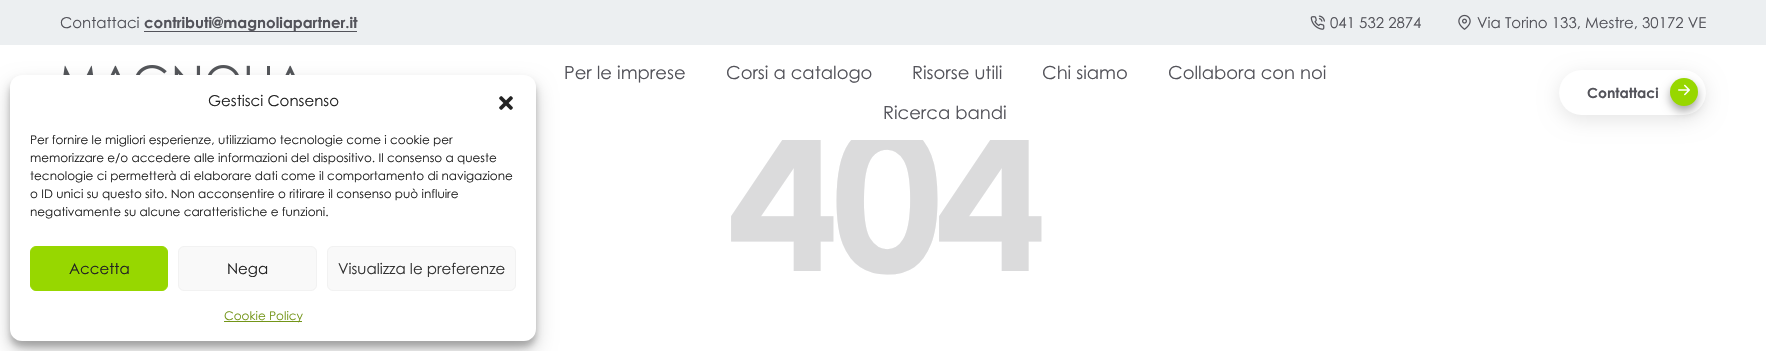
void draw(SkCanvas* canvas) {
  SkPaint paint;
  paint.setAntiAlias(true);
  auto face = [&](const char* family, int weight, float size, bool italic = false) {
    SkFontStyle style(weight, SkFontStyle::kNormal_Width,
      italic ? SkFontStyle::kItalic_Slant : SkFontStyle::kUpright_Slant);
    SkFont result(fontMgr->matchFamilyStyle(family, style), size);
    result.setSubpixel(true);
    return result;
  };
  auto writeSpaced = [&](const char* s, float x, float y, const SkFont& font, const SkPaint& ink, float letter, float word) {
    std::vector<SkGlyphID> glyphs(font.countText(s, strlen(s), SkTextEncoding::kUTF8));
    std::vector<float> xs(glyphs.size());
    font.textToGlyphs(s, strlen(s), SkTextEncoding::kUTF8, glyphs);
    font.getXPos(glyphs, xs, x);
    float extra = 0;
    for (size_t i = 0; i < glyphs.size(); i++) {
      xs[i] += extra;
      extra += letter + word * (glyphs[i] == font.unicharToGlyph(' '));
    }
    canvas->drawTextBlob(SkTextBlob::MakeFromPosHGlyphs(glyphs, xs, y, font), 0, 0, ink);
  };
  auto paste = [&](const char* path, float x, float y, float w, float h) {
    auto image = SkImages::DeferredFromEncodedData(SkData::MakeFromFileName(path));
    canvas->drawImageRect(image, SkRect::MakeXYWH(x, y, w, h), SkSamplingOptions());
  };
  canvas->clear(0xffffffff);
  paint.setColor(0x1a000000);
  paint.setMaskFilter(SkMaskFilter::MakeBlur(kNormal_SkBlurStyle, 10));
  canvas->drawRoundRect(SkRect::MakeXYWH(1559, 75, 147, 45), 22.5f, 22.5f, paint);
  paint.setMaskFilter(nullptr);
  paint.setColor(0xffeceff1);
  canvas->drawRect(SkRect::MakeXYWH(0, 0, 1766, 45), paint);
  paint.setColor(0xff53535a);
  canvas->drawRect(SkRect::MakeXYWH(144, 31, 213, 1), paint);
  paste("img/1.png", 1310, 15, 15, 15);
  paste("img/2.png", 1458, 14, 13, 16);
  paste("img/3.png", 63, 65, 232, 10);
  paint.setColor(0xffffffff);
  canvas->drawRoundRect(SkRect::MakeXYWH(1559, 70, 147, 45), 22.5f, 22.5f, paint);
  paint.setColor(0x59000000);
  paint.setMaskFilter(SkMaskFilter::MakeBlur(kNormal_SkBlurStyle, 5));
  canvas->drawRoundRect(SkRect::MakeXYWH(1670, 83, 28, 28), 14, 14, paint);
  paint.setMaskFilter(nullptr);
  paint.setColor(0xff97d700);
  canvas->drawCircle(1684, 92, 14, paint);
  paste("img/4.png", 1678, 84, 12, 12);
  paint.setColor(0x3b000000);
  paint.setMaskFilter(SkMaskFilter::MakeBlur(kNormal_SkBlurStyle, 3));
  canvas->drawRoundRect(SkRect::MakeXYWH(10, 81, 526, 266), 12, 12, paint);
  paint.setMaskFilter(nullptr);
  paint.setColor(0x30000000);
  paint.setMaskFilter(SkMaskFilter::MakeBlur(kNormal_SkBlurStyle, 10));
  canvas->drawRoundRect(SkRect::MakeXYWH(10, 85, 526, 266), 12, 12, paint);
  paint.setMaskFilter(nullptr);
  paint.setColor(0xffffffff);
  canvas->drawRoundRect(SkRect::MakeXYWH(10, 75, 526, 266), 12, 12, paint);
  paste("img/5.png", 499, 96, 14, 14);
  paint.setColor(0xff97d700);
  canvas->drawRoundRect(SkRect::MakeXYWH(30.5f, 246.5f, 137, 44), 5.5f, 5.5f, paint);
  paint.setStroke(true);
  paint.setStrokeWidth(1);
  canvas->drawRoundRect(SkRect::MakeXYWH(30.5f, 246.5f, 137, 44), 5.5f, 5.5f, paint);
  paint.setStroke(false);
  paint.setColor(0xfff9f9f9);
  canvas->drawRoundRect(SkRect::MakeXYWH(178.5f, 246.5f, 138, 44), 5.5f, 5.5f, paint);
  paint.setStroke(true);
  paint.setColor(0xfff2f2f2);
  canvas->drawRoundRect(SkRect::MakeXYWH(178.5f, 246.5f, 138, 44), 5.5f, 5.5f, paint);
  paint.setStroke(false);
  paint.setColor(0xfff9f9f9);
  canvas->drawRoundRect(SkRect::MakeXYWH(327.5f, 246.5f, 188, 44), 5.5f, 5.5f, paint);
  paint.setStroke(true);
  paint.setColor(0xfff2f2f2);
  canvas->drawRoundRect(SkRect::MakeXYWH(327.5f, 246.5f, 188, 44), 5.5f, 5.5f, paint);
  paint.setStroke(false);
  paint.setColor(0xff739518);
  canvas->drawRect(SkRect::MakeXYWH(224, 321, 78, 1), paint);
  auto f0 = face("Century Gothic", 400, 15);
  paint.setColor(0xff53535a);
  canvas->drawString("Contattaci", 60, 28, f0, paint);
  auto f1 = face("Century Gothic", 700, 15);
  canvas->drawString("contributi@magnoliapartner.it", 144, 28, f1, paint);
  canvas->drawString("041 532 2874", 1330, 28, f0, paint);
  canvas->drawString("Via Torino 133, Mestre, 30172 VE", 1477, 28, f0, paint);
  auto f2 = face("Century Gothic", 400, 18);
  {
    const struct { const char* s; float x, y; } items[] = {
      {"Per le imprese", 564, 79},
      {"Corsi a catalogo", 726, 79},
      {"Risorse utili", 912, 79},
      {"Chi siamo", 1042, 79},
      {"Collabora con noi", 1168, 79},
      {"Ricerca bandi", 883, 119},
    };
    for (auto [s, x, y] : items) {
      canvas->drawString(s, x, y, f2, paint);
    }
  }
  auto f3 = face("Century Gothic", 700, 14);
  canvas->drawString("Contattaci", 1587, 98, f3, paint);
  paint.setColor(0xff222222);
  canvas->drawString("Gestisci Consenso", 208, 106, f0, paint);
  auto f4 = face("Century Gothic", 400, 12);
  {
    const struct { const char* s; float x, y; } items[] = {
      {"Per fornire le migliori esperienze, utilizziamo tecnologie come i cookie per", 30, 144},
      {"memorizzare e/o accedere alle informazioni del dispositivo. Il consenso a queste", 30, 162},
      {"tecnologie ci permetterà di elaborare dati come il comportamento di navigazione", 30, 180},
      {"o ID unici su questo sito. Non acconsentire o ritirare il consenso può influire", 30, 198},
      {"negativamente su alcune caratteristiche e funzioni.", 30, 216},
    };
    for (auto [s, x, y] : items) {
      canvas->drawString(s, x, y, f4, paint);
    }
  }
  canvas->drawString("Accetta", 69, 274, f0, paint);
  canvas->drawString("Nega", 227, 274, f0, paint);
  paint.setColor(0xff333333);
  canvas->drawString("Visualizza le preferenze", 338, 274, f0, paint);
  paint.setColor(0xff739518);
  canvas->drawString("Cookie Policy", 224, 320, f4, paint);
  auto f5 = face("Century Gothic", 700, 200);
  paint.setColor(0xffdbdbdc);
  writeSpaced("404", 727, 271, f5, paint, -8, 0);
  paint.setColor(0xffffffff);
  canvas->drawRect(SkRect::MakeXYWH(782, 123, 247, 17), paint);
}
